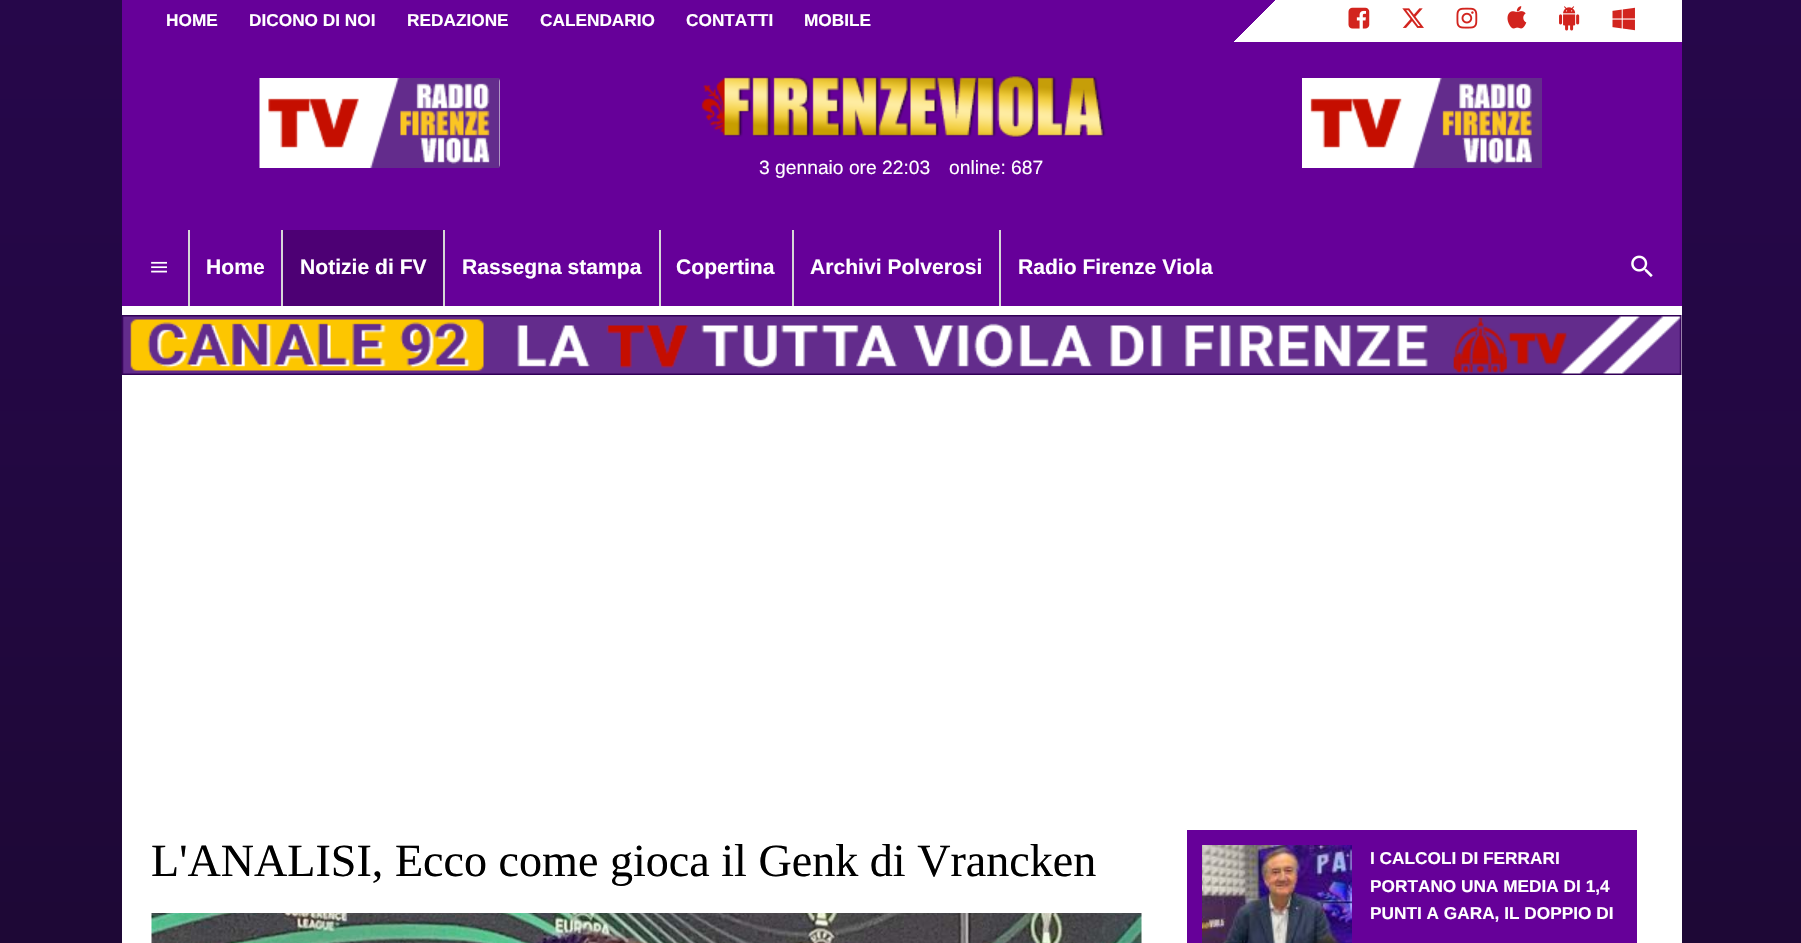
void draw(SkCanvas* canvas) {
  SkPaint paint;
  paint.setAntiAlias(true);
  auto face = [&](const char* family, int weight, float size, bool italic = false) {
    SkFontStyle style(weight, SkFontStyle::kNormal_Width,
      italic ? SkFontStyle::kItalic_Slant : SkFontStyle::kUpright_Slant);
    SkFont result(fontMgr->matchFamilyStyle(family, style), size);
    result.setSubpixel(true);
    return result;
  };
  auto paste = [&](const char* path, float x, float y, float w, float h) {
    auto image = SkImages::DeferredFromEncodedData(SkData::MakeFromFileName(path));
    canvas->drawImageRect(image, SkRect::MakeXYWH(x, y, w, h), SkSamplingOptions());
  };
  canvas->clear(0xffffffff);
  paste("img/1.png", 0, 0, 1801, 943);
  paint.setColor(0xffffffff);
  canvas->drawRect(SkRect::MakeXYWH(122, 306, 1560, 637), paint);
  {
    const SkColor colors[] = {0xff660099, 0xffffffff, 0xffffffff};
    const float stops[] = {0.72f, 0.72f, 1};
    const SkPoint ends[] = {{501, -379}, {1302, 422}};
    paint.setShader(SkGradientShader::MakeLinear(ends, colors, stops, 3, SkTileMode::kClamp));
    paint.setAlpha(255);
  }
  canvas->drawRect(SkRect::MakeXYWH(122, 0, 1560, 42), paint);
  paste("img/2.png", 1348, 7, 22, 22);
  paste("img/3.png", 1402, 8, 22, 20);
  paste("img/4.png", 1456, 7, 22, 22);
  paste("img/5.png", 1507, 6, 20, 23);
  paste("img/6.png", 1559, 6, 21, 25);
  paste("img/7.png", 1612, 7, 23, 24);
  paint.setShader(nullptr);
  paint.setColor(0xff660099);
  canvas->drawRect(SkRect::MakeXYWH(122, 42, 1560, 264), paint);
  paint.setColor(0xffffffff);
  canvas->drawRoundRect(SkRect::MakeXYWH(260, 78, 240, 90), 4, 4, paint);
  paste("img/8.png", 259, 78, 241, 90);
  paste("img/9.png", 701, 75, 405, 63);
  paste("img/10.png", 1302, 78, 240, 90);
  paste("img/11.png", 151, 261, 16, 12);
  {
    const struct { float x, y, w, h; SkColor color; } items[] = {
      {188, 230, 2, 76, 0xffd6d6d6},
      {283, 230, 160, 76, 0xff4d0074},
      {281, 230, 2, 76, 0xffd6d6d6},
      {443, 230, 2, 76, 0xffd6d6d6},
      {659, 230, 2, 76, 0xffd6d6d6},
      {792, 230, 2, 76, 0xffd6d6d6},
      {999, 230, 2, 76, 0xffd6d6d6},
    };
    for (auto [x, y, w, h, color] : items) {
      paint.setColor(color);
      canvas->drawRect(SkRect::MakeXYWH(x, y, w, h), paint);
    }
  }
  paste("img/12.png", 1631, 255, 22, 22);
  paste("img/13.png", 121, 315, 1561, 60);
  paste("img/14.png", 151, 913, 991, 30);
  paint.setColor(0xff660099);
  canvas->drawRect(SkRect::MakeXYWH(1187, 830, 450, 113), paint);
  paste("img/15.png", 1202, 845, 150, 98);
  auto f0 = face("Liberation Sans", 700, 17.25f);
  paint.setColor(0xffffffff);
  {
    const struct { const char* s; float x, y; } items[] = {
      {"HOME", 166, 26},
      {"DICONO DI NOI", 249, 26},
      {"REDAZIONE", 407, 26},
      {"CALENDARIO", 540, 26},
      {"CONTATTI", 686, 26},
      {"MOBILE", 804, 26},
    };
    for (auto [s, x, y] : items) {
      canvas->drawString(s, x, y, f0, paint);
    }
  }
  auto f1 = face("Liberation Sans", 400, 19.25f);
  canvas->drawString("3 gennaio ore 22:03", 759, 174, f1, paint);
  canvas->drawString("online: 687", 949, 174, f1, paint);
  auto f2 = face("Liberation Sans", 700, 21.1f);
  {
    const struct { const char* s; float x, y; } items[] = {
      {"Home", 206, 274},
      {"Notizie di FV", 300, 274},
      {"Rassegna stampa", 462, 274},
      {"Copertina", 676, 274},
      {"Archivi Polverosi", 810, 274},
      {"Radio Firenze Viola", 1018, 274},
    };
    for (auto [s, x, y] : items) {
      canvas->drawString(s, x, y, f2, paint);
    }
  }
  auto f3 = face("Liberation Serif", 400, 46.1f);
  paint.setColor(0xff000000);
  canvas->drawString("L'ANALISI, Ecco come gioca il Genk di Vrancken", 151, 876, f3, paint);
  paint.setColor(0xffffffff);
  {
    const struct { const char* s; float x, y; } items[] = {
      {"I CALCOLI DI FERRARI", 1370, 864},
      {"PORTANO UNA MEDIA DI 1,4", 1370, 892},
      {"PUNTI A GARA, IL DOPPIO DI", 1370, 919},
    };
    for (auto [s, x, y] : items) {
      canvas->drawString(s, x, y, f0, paint);
    }
  }
}
